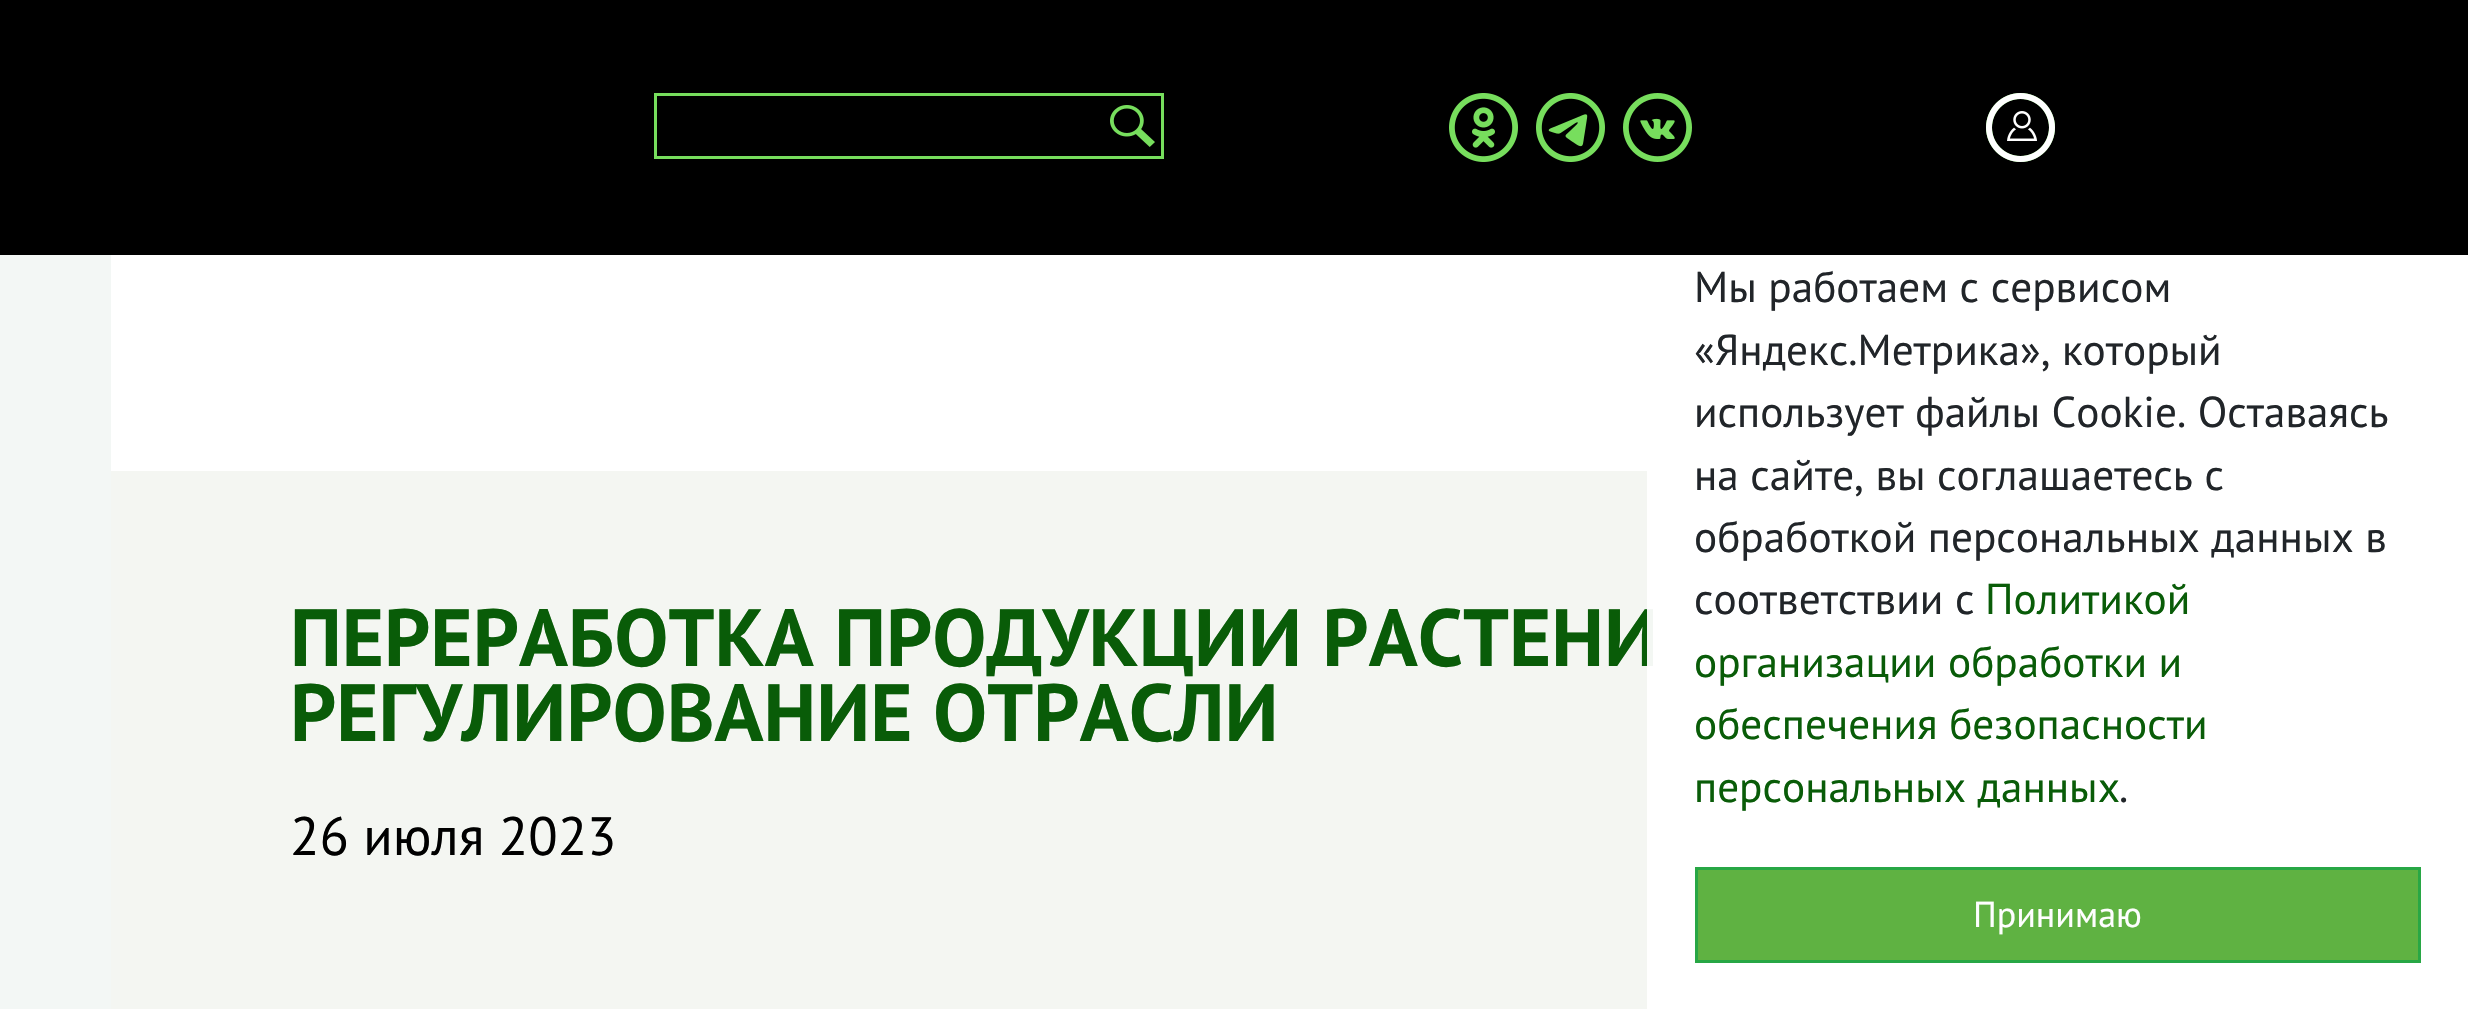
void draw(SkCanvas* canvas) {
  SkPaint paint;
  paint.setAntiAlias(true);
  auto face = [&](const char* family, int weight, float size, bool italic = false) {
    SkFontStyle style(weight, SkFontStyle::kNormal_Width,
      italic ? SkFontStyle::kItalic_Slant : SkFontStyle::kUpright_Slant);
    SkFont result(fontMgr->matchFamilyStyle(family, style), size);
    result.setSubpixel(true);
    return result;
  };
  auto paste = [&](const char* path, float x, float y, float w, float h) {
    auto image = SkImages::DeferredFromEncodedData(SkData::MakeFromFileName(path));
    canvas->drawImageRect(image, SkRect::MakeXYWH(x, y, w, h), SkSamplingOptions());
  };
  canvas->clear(0xfff3f7f5);
  {
    const struct { float x, y, w, h; SkColor color; } items[] = {
      {0, 0, 2468, 255, 0xff000000},
      {654, 93, 510, 3, 0xff77de5d},
      {654, 156, 450, 3, 0xff77de5d},
      {654, 93, 3, 66, 0xff77de5d},
    };
    for (auto [x, y, w, h, color] : items) {
      paint.setColor(color);
      canvas->drawRect(SkRect::MakeXYWH(x, y, w, h), paint);
    }
  }
  paste("img/1.png", 1110, 105, 45, 42);
  canvas->drawRect(SkRect::MakeXYWH(1161, 93, 3, 66), paint);
  canvas->drawRect(SkRect::MakeXYWH(1104, 156, 60, 3), paint);
  paste("img/2.png", 1449, 93, 69, 69);
  paste("img/3.png", 1536, 93, 69, 69);
  paste("img/4.png", 1623, 93, 69, 69);
  paste("img/5.png", 1986, 93, 69, 69);
  paint.setColor(0xffffffff);
  canvas->drawRect(SkRect::MakeXYWH(111, 255, 2250, 216), paint);
  paint.setColor(0xfff4f6f2);
  canvas->drawRect(SkRect::MakeXYWH(111, 471, 2250, 538), paint);
  auto f0 = face("PT Sans", 700, 81);
  paint.setColor(0xff095c08);
  canvas->drawString("ПЕРЕРАБОТКА ПРОДУКЦИИ РАСТЕНИ", 290, 666, f0, paint);
  canvas->drawString("РЕГУЛИРОВАНИЕ ОТРАСЛИ", 290, 741, f0, paint);
  auto f1 = face("PT Sans", 400, 54);
  paint.setColor(0xff000000);
  canvas->drawString("26 июля 2023", 290, 855, f1, paint);
  paint.setColor(0xf2ffffff);
  canvas->drawRect(SkRect::MakeXYWH(1647, 255, 821, 754), paint);
  auto f2 = face("PT Sans", 400, 43.25f);
  paint.setColor(0xff212529);
  {
    const struct { const char* s; float x, y; } items[] = {
      {"Мы работаем с сервисом", 1694, 302},
      {"«Яндекс.Метрика», который", 1694, 365},
      {"использует файлы Cookie. Оставаясь", 1694, 427},
      {"на сайте, вы соглашаетесь с", 1694, 490},
      {"обработкой персональных данных в", 1694, 552},
      {"соответствии с", 1694, 614},
    };
    for (auto [s, x, y] : items) {
      canvas->drawString(s, x, y, f2, paint);
    }
  }
  paint.setColor(0xff095c08);
  {
    const struct { const char* s; float x, y; } items[] = {
      {"Политикой", 1985, 614},
      {"организации обработки и", 1694, 677},
      {"обеспечения безопасности", 1694, 739},
      {"персональных данных", 1694, 802},
    };
    for (auto [s, x, y] : items) {
      canvas->drawString(s, x, y, f2, paint);
    }
  }
  paint.setColor(0xff212529);
  canvas->drawString(".", 2119, 802, f2, paint);
  paint.setColor(0xff5fb242);
  canvas->drawRect(SkRect::MakeXYWH(1696.5f, 868.5f, 723, 93), paint);
  paint.setStroke(true);
  paint.setStrokeWidth(3);
  paint.setColor(0xff28a745);
  canvas->drawRect(SkRect::MakeXYWH(1696.5f, 868.5f, 723, 93), paint);
  auto f3 = face("PT Sans", 400, 36);
  paint.setStroke(false);
  paint.setColor(0xfffefefe);
  canvas->drawString("Принимаю", 1973, 927, f3, paint);
}
